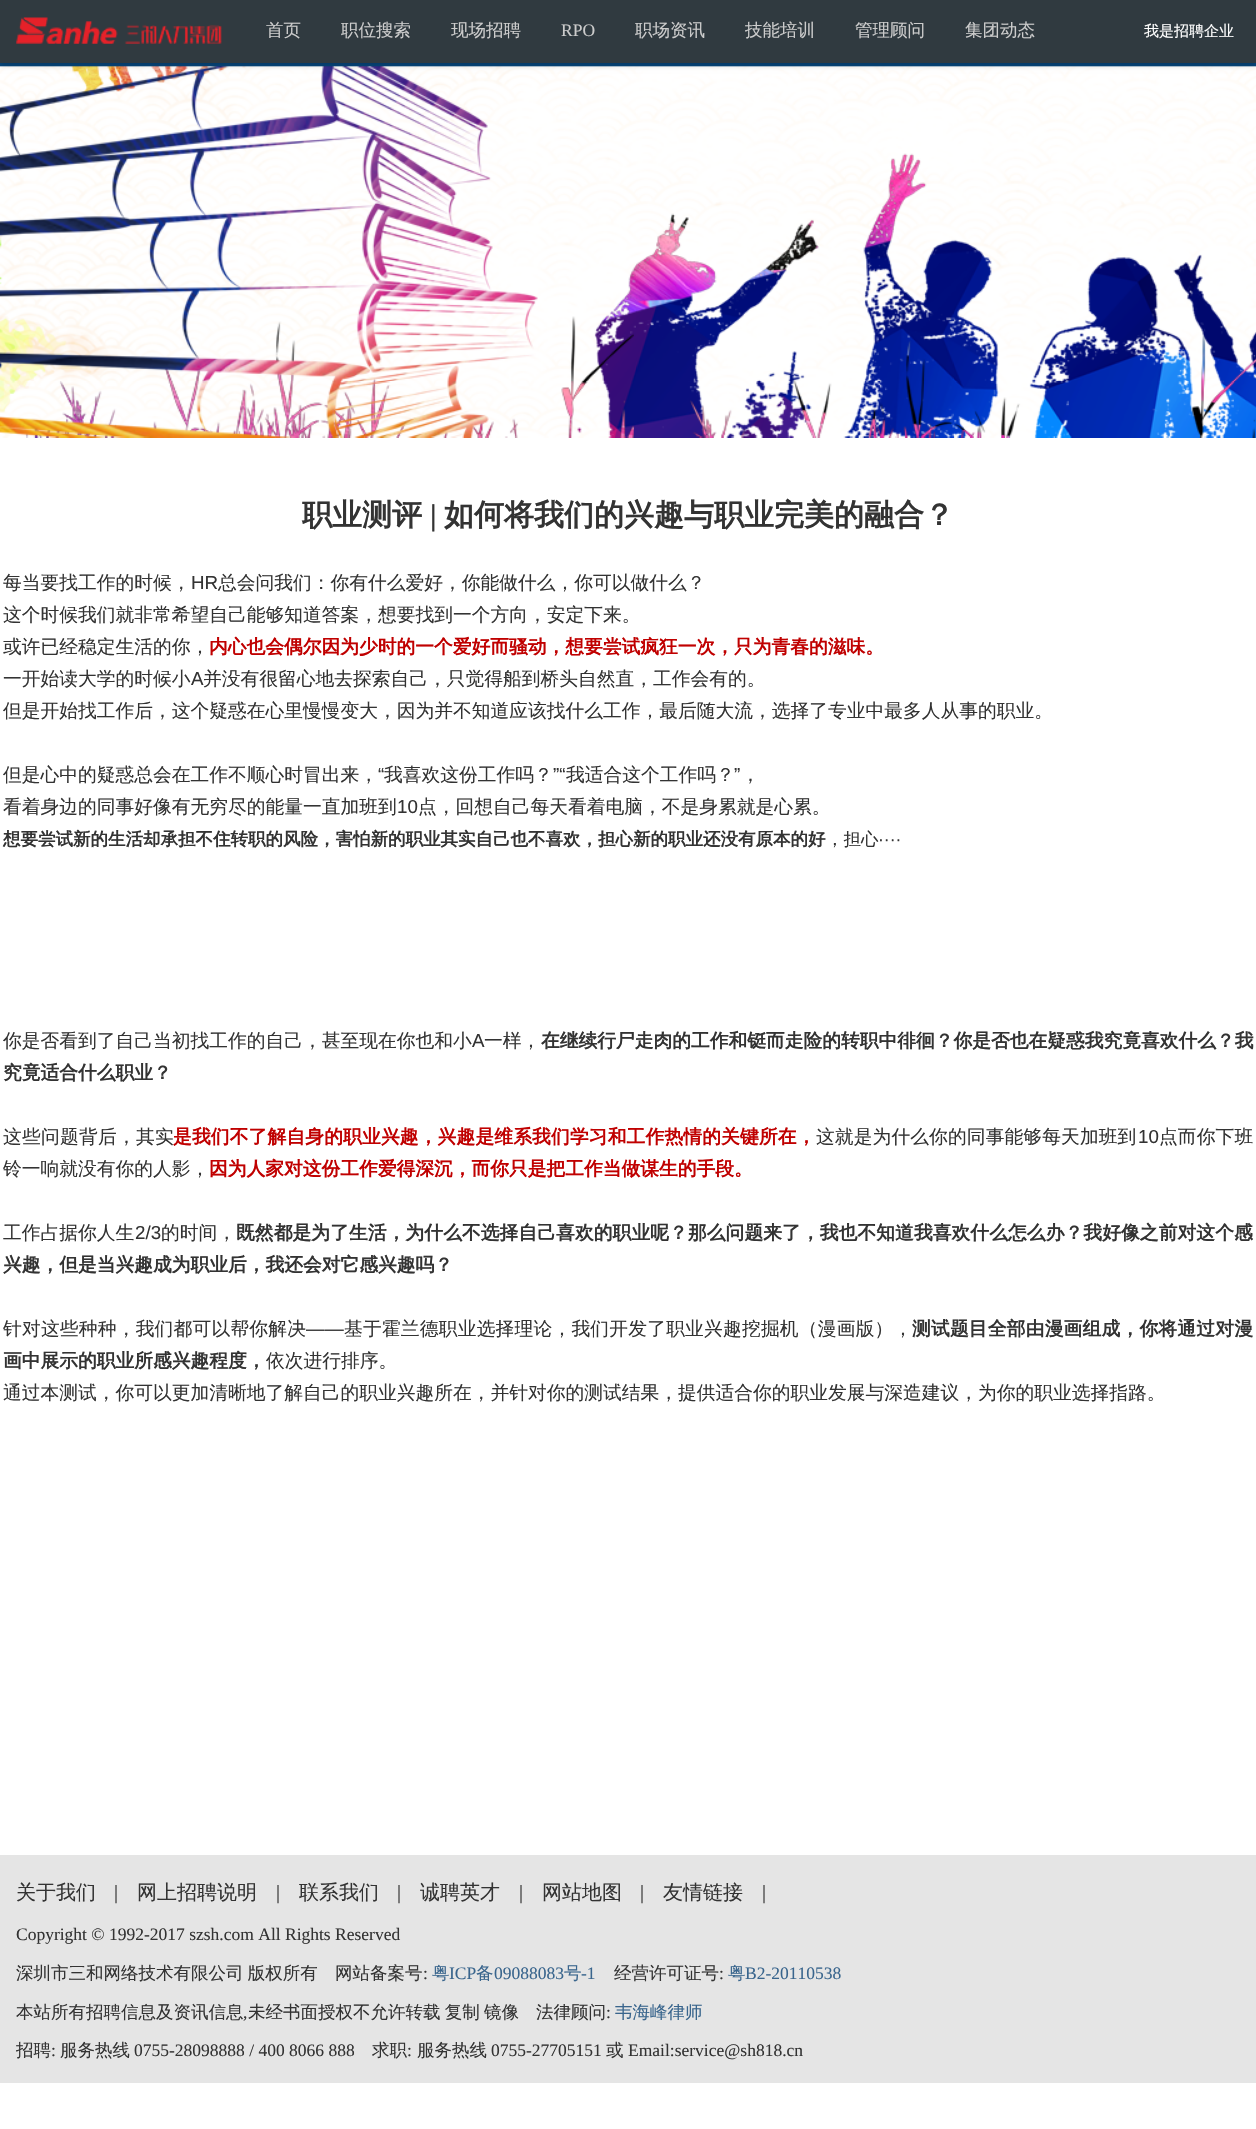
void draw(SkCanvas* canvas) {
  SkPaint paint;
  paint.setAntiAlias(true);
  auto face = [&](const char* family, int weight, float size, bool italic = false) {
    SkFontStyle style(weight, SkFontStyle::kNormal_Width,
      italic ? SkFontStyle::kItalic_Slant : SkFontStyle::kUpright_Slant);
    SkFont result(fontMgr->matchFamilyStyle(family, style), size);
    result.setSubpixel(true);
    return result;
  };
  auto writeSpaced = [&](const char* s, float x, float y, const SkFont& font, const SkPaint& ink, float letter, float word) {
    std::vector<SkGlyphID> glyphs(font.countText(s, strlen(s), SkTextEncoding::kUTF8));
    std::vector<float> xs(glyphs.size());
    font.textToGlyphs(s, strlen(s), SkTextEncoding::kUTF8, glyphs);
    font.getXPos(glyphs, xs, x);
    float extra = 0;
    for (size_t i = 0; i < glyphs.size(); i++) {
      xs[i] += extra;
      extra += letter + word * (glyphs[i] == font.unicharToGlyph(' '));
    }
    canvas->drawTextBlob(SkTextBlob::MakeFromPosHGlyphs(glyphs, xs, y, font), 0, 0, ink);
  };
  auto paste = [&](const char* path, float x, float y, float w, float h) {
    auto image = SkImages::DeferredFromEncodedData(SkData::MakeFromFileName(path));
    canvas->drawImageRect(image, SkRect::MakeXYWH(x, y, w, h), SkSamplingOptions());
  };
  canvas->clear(0xffffffff);
  paste("img/2.png", 0, 63, 1256, 375);
  paint.setColor(0x33000000);
  paint.setMaskFilter(SkMaskFilter::MakeBlur(kNormal_SkBlurStyle, 3));
  canvas->drawRect(SkRect::MakeXYWH(0, 3, 1256, 62), paint);
  paint.setMaskFilter(nullptr);
  paint.setColor(0xff303a40);
  canvas->drawRect(SkRect::MakeXYWH(0, 0, 1256, 63), paint);
  paste("img/1.png", 16, 17, 206, 27);
  paint.setColor(0xffe5e5e5);
  canvas->drawRect(SkRect::MakeXYWH(0, 1855, 1256, 228), paint);
  auto f0 = face("WenQuanYi Zen Hei", 500, 17.5f);
  paint.setColor(0xffcccccc);
  {
    const struct { const char* s; float x, y; } items[] = {
      {"首页", 266, 36},
      {"职位搜索", 341, 36},
      {"现场招聘", 451, 36},
    };
    for (auto [s, x, y] : items) {
      canvas->drawString(s, x, y, f0, paint);
    }
  }
  auto f1 = face("Liberation Serif", 400, 17.5f);
  canvas->drawString("RPO", 561, 36, f1, paint);
  {
    const struct { const char* s; float x, y; } items[] = {
      {"职场资讯", 635, 36},
      {"技能培训", 745, 36},
      {"管理顾问", 855, 36},
      {"集团动态", 965, 36},
    };
    for (auto [s, x, y] : items) {
      canvas->drawString(s, x, y, f0, paint);
    }
  }
  auto f2 = face("WenQuanYi Zen Hei", 500, 15);
  paint.setColor(0xffffffff);
  canvas->drawString("我是招聘企业", 1144, 36, f2, paint);
  auto f3 = face("WenQuanYi Zen Hei", 700, 30);
  paint.setColor(0xff333333);
  canvas->drawString("职业测评", 302, 525, f3, paint);
  auto f4 = face("Liberation Serif", 700, 30);
  canvas->drawString("|", 430, 525, f4, paint);
  canvas->drawString("如何将我们的兴趣与职业完美的融合？", 444, 525, f3, paint);
  auto f5 = face("WenQuanYi Zen Hei", 500, 18.75f);
  canvas->drawString("每当要找工作的时候，", 3, 589, f5, paint);
  auto f6 = face("Liberation Sans", 400, 18.75f);
  canvas->drawString("HR", 191, 589, f6, paint);
  {
    const struct { const char* s; float x, y; } items[] = {
      {"总会问我们：你有什么爱好，你能做什么，你可以做什么？", 218, 589},
      {"这个时候我们就非常希望自己能够知道答案，想要找到一个方向，安定下来。", 3, 621},
      {"或许已经稳定生活的你，", 3, 653},
    };
    for (auto [s, x, y] : items) {
      canvas->drawString(s, x, y, f5, paint);
    }
  }
  auto f7 = face("WenQuanYi Zen Hei", 700, 18.75f);
  paint.setColor(0xffc00000);
  canvas->drawString("内心也会偶尔因为少时的一个爱好而骚动，想要尝试疯狂一次，只为青春的滋味。", 209, 653, f7, paint);
  paint.setColor(0xff333333);
  canvas->drawString("一开始读大学的时候小", 3, 685, f5, paint);
  canvas->drawString("A", 191, 685, f6, paint);
  {
    const struct { const char* s; float x, y; } items[] = {
      {"并没有很留心地去探索自己，只觉得船到桥头自然直，工作会有的。", 203, 685},
      {"但是开始找工作后，这个疑惑在心里慢慢变大，因为并不知道应该找什么工作，最后随大流，选择了专业中最多人从事的职业。", 3, 717},
      {"但是心中的疑惑总会在工作不顺心时冒出来，", 3, 781},
    };
    for (auto [s, x, y] : items) {
      canvas->drawString(s, x, y, f5, paint);
    }
  }
  canvas->drawString("“", 378, 781, f6, paint);
  canvas->drawString("我喜欢这份工作吗？", 384, 781, f5, paint);
  canvas->drawString("”“", 553, 781, f6, paint);
  canvas->drawString("我适合这个工作吗？", 566, 781, f5, paint);
  canvas->drawString("”", 734, 781, f6, paint);
  canvas->drawString("，", 741, 781, f5, paint);
  canvas->drawString("看着身边的同事好像有无穷尽的能量一直加班到", 3, 813, f5, paint);
  canvas->drawString("10", 397, 813, f6, paint);
  canvas->drawString("点，回想自己每天看着电脑，不是身累就是心累。", 418, 813, f5, paint);
  auto f8 = face("WenQuanYi Zen Hei", 700, 17.5f);
  canvas->drawString("想要尝试新的生活却承担不住转职的风险，害怕新的职业其实自己也不喜欢，担心新的职业还没有原本的好", 3, 845, f8, paint);
  canvas->drawString("，担心", 826, 845, f0, paint);
  auto f9 = face("Liberation Sans", 400, 17.5f);
  canvas->drawString("····", 878, 845, f9, paint);
  canvas->drawString("你是否看到了自己当初找工作的自己，甚至现在你也和小", 3, 1047, f5, paint);
  canvas->drawString("A", 472, 1047, f6, paint);
  canvas->drawString("一样，", 484, 1047, f5, paint);
  canvas->drawString("在继续行尸走肉的工作和铤而走险的转职中徘徊？你是否也在疑惑我究竟喜欢什么？我", 541, 1047, f7, paint);
  canvas->drawString("究竟适合什么职业？", 3, 1079, f7, paint);
  writeSpaced("这些问题背后，其实", 3, 1143, f5, paint, 0.25f, 0);
  paint.setColor(0xffc00000);
  writeSpaced("是我们不了解自身的职业兴趣，兴趣是维系我们学习和工作热情的关键所在，", 173, 1143, f7, paint, 0.15f, 0);
  paint.setColor(0xff333333);
  writeSpaced("这就是为什么你的同事能够每天加班到", 816, 1143, f5, paint, 0.1f, 0);
  writeSpaced("10", 1138, 1143, f6, paint, 0.1f, 0);
  writeSpaced("点而你下班", 1159, 1143, f5, paint, 0.1f, 0);
  canvas->drawString("铃一响就没有你的人影，", 3, 1175, f5, paint);
  paint.setColor(0xffc00000);
  canvas->drawString("因为人家对这份工作爱得深沉，而你只是把工作当做谋生的手段。", 209, 1175, f7, paint);
  paint.setColor(0xff333333);
  canvas->drawString("工作占据你人生", 3, 1239, f5, paint);
  canvas->drawString("2/3", 135, 1239, f6, paint);
  canvas->drawString("的时间，", 161, 1239, f5, paint);
  writeSpaced("既然都是为了生活，为什么不选择自己喜欢的职业呢？那么问题来了，我也不知道我喜欢什么怎么办？我好像之前对这个感", 236, 1239, f7, paint, 0.08f, 0);
  canvas->drawString("兴趣，但是当兴趣成为职业后，我还会对它感兴趣吗？", 3, 1271, f7, paint);
  writeSpaced("针对这些种种，我们都可以帮你解决", 3, 1335, f5, paint, 0.2f, 0);
  writeSpaced("——", 306, 1335, f6, paint, 0.2f, 0);
  writeSpaced("基于霍兰德职业选择理论，我们开发了职业兴趣挖掘机（漫画版），", 344, 1335, f5, paint, 0.2f, 0);
  writeSpaced("测试题目全部由漫画组成，你将通过对漫", 912, 1335, f7, paint, 0.2f, 0);
  canvas->drawString("画中展示的职业所感兴趣程度，", 3, 1367, f7, paint);
  canvas->drawString("依次进行排序。", 266, 1367, f5, paint);
  canvas->drawString("通过本测试，你可以更加清晰地了解自己的职业兴趣所在，并针对你的测试结果，提供适合你的职业发展与深造建议，为你的职业选择指路。", 3, 1399, f5, paint);
  auto f10 = face("WenQuanYi Zen Hei", 500, 20);
  canvas->drawString("关于我们", 16, 1899, f10, paint);
  auto f11 = face("Liberation Serif", 400, 20);
  canvas->drawString("|", 114, 1899, f11, paint);
  canvas->drawString("网上招聘说明", 137, 1899, f10, paint);
  canvas->drawString("|", 276, 1899, f11, paint);
  canvas->drawString("联系我们", 299, 1899, f10, paint);
  canvas->drawString("|", 397, 1899, f11, paint);
  canvas->drawString("诚聘英才", 420, 1899, f10, paint);
  canvas->drawString("|", 519, 1899, f11, paint);
  canvas->drawString("网站地图", 542, 1899, f10, paint);
  canvas->drawString("|", 640, 1899, f11, paint);
  canvas->drawString("友情链接", 663, 1899, f10, paint);
  canvas->drawString("|", 762, 1899, f11, paint);
  canvas->drawString("Copyright © 1992-2017 szsh.com All Rights Reserved", 16, 1940, f1, paint);
  writeSpaced("深圳市三和网络技术有限公司 版权所有", 16, 1979, f0, paint, 0, -1);
  canvas->drawString("网站备案号", 335, 1979, f0, paint);
  canvas->drawString(":", 423, 1979, f1, paint);
  paint.setColor(0xff39658d);
  canvas->drawString("粤", 432, 1979, f0, paint);
  canvas->drawString("ICP", 449, 1979, f1, paint);
  canvas->drawString("备", 476, 1979, f0, paint);
  canvas->drawString("09088083", 494, 1979, f1, paint);
  canvas->drawString("号", 564, 1979, f0, paint);
  canvas->drawString("-1", 581, 1979, f1, paint);
  paint.setColor(0xff333333);
  canvas->drawString("经营许可证号", 614, 1979, f0, paint);
  canvas->drawString(":", 719, 1979, f1, paint);
  paint.setColor(0xff39658d);
  canvas->drawString("粤", 728, 1979, f0, paint);
  canvas->drawString("B2-20110538", 745, 1979, f1, paint);
  paint.setColor(0xff333333);
  canvas->drawString("本站所有招聘信息及资讯信息", 16, 2018, f0, paint);
  canvas->drawString(",", 243, 2018, f1, paint);
  writeSpaced("未经书面授权不允许转载 复制 镜像", 248, 2018, f0, paint, 0, -1);
  canvas->drawString("法律顾问", 536, 2018, f0, paint);
  canvas->drawString(":", 606, 2018, f1, paint);
  paint.setColor(0xff39658d);
  canvas->drawString("韦海峰律师", 615, 2018, f0, paint);
  paint.setColor(0xff333333);
  canvas->drawString("招聘", 16, 2056, f0, paint);
  canvas->drawString(":", 51, 2056, f1, paint);
  canvas->drawString("服务热线", 60, 2056, f0, paint);
  canvas->drawString("0755-28098888 / 400 8066 888", 134, 2056, f1, paint);
  canvas->drawString("求职", 372, 2056, f0, paint);
  canvas->drawString(":", 407, 2056, f1, paint);
  canvas->drawString("服务热线", 417, 2056, f0, paint);
  canvas->drawString("0755-27705151", 491, 2056, f1, paint);
  canvas->drawString("或", 606, 2056, f0, paint);
  canvas->drawString("Email:service@sh818.cn", 628, 2056, f1, paint);
}
